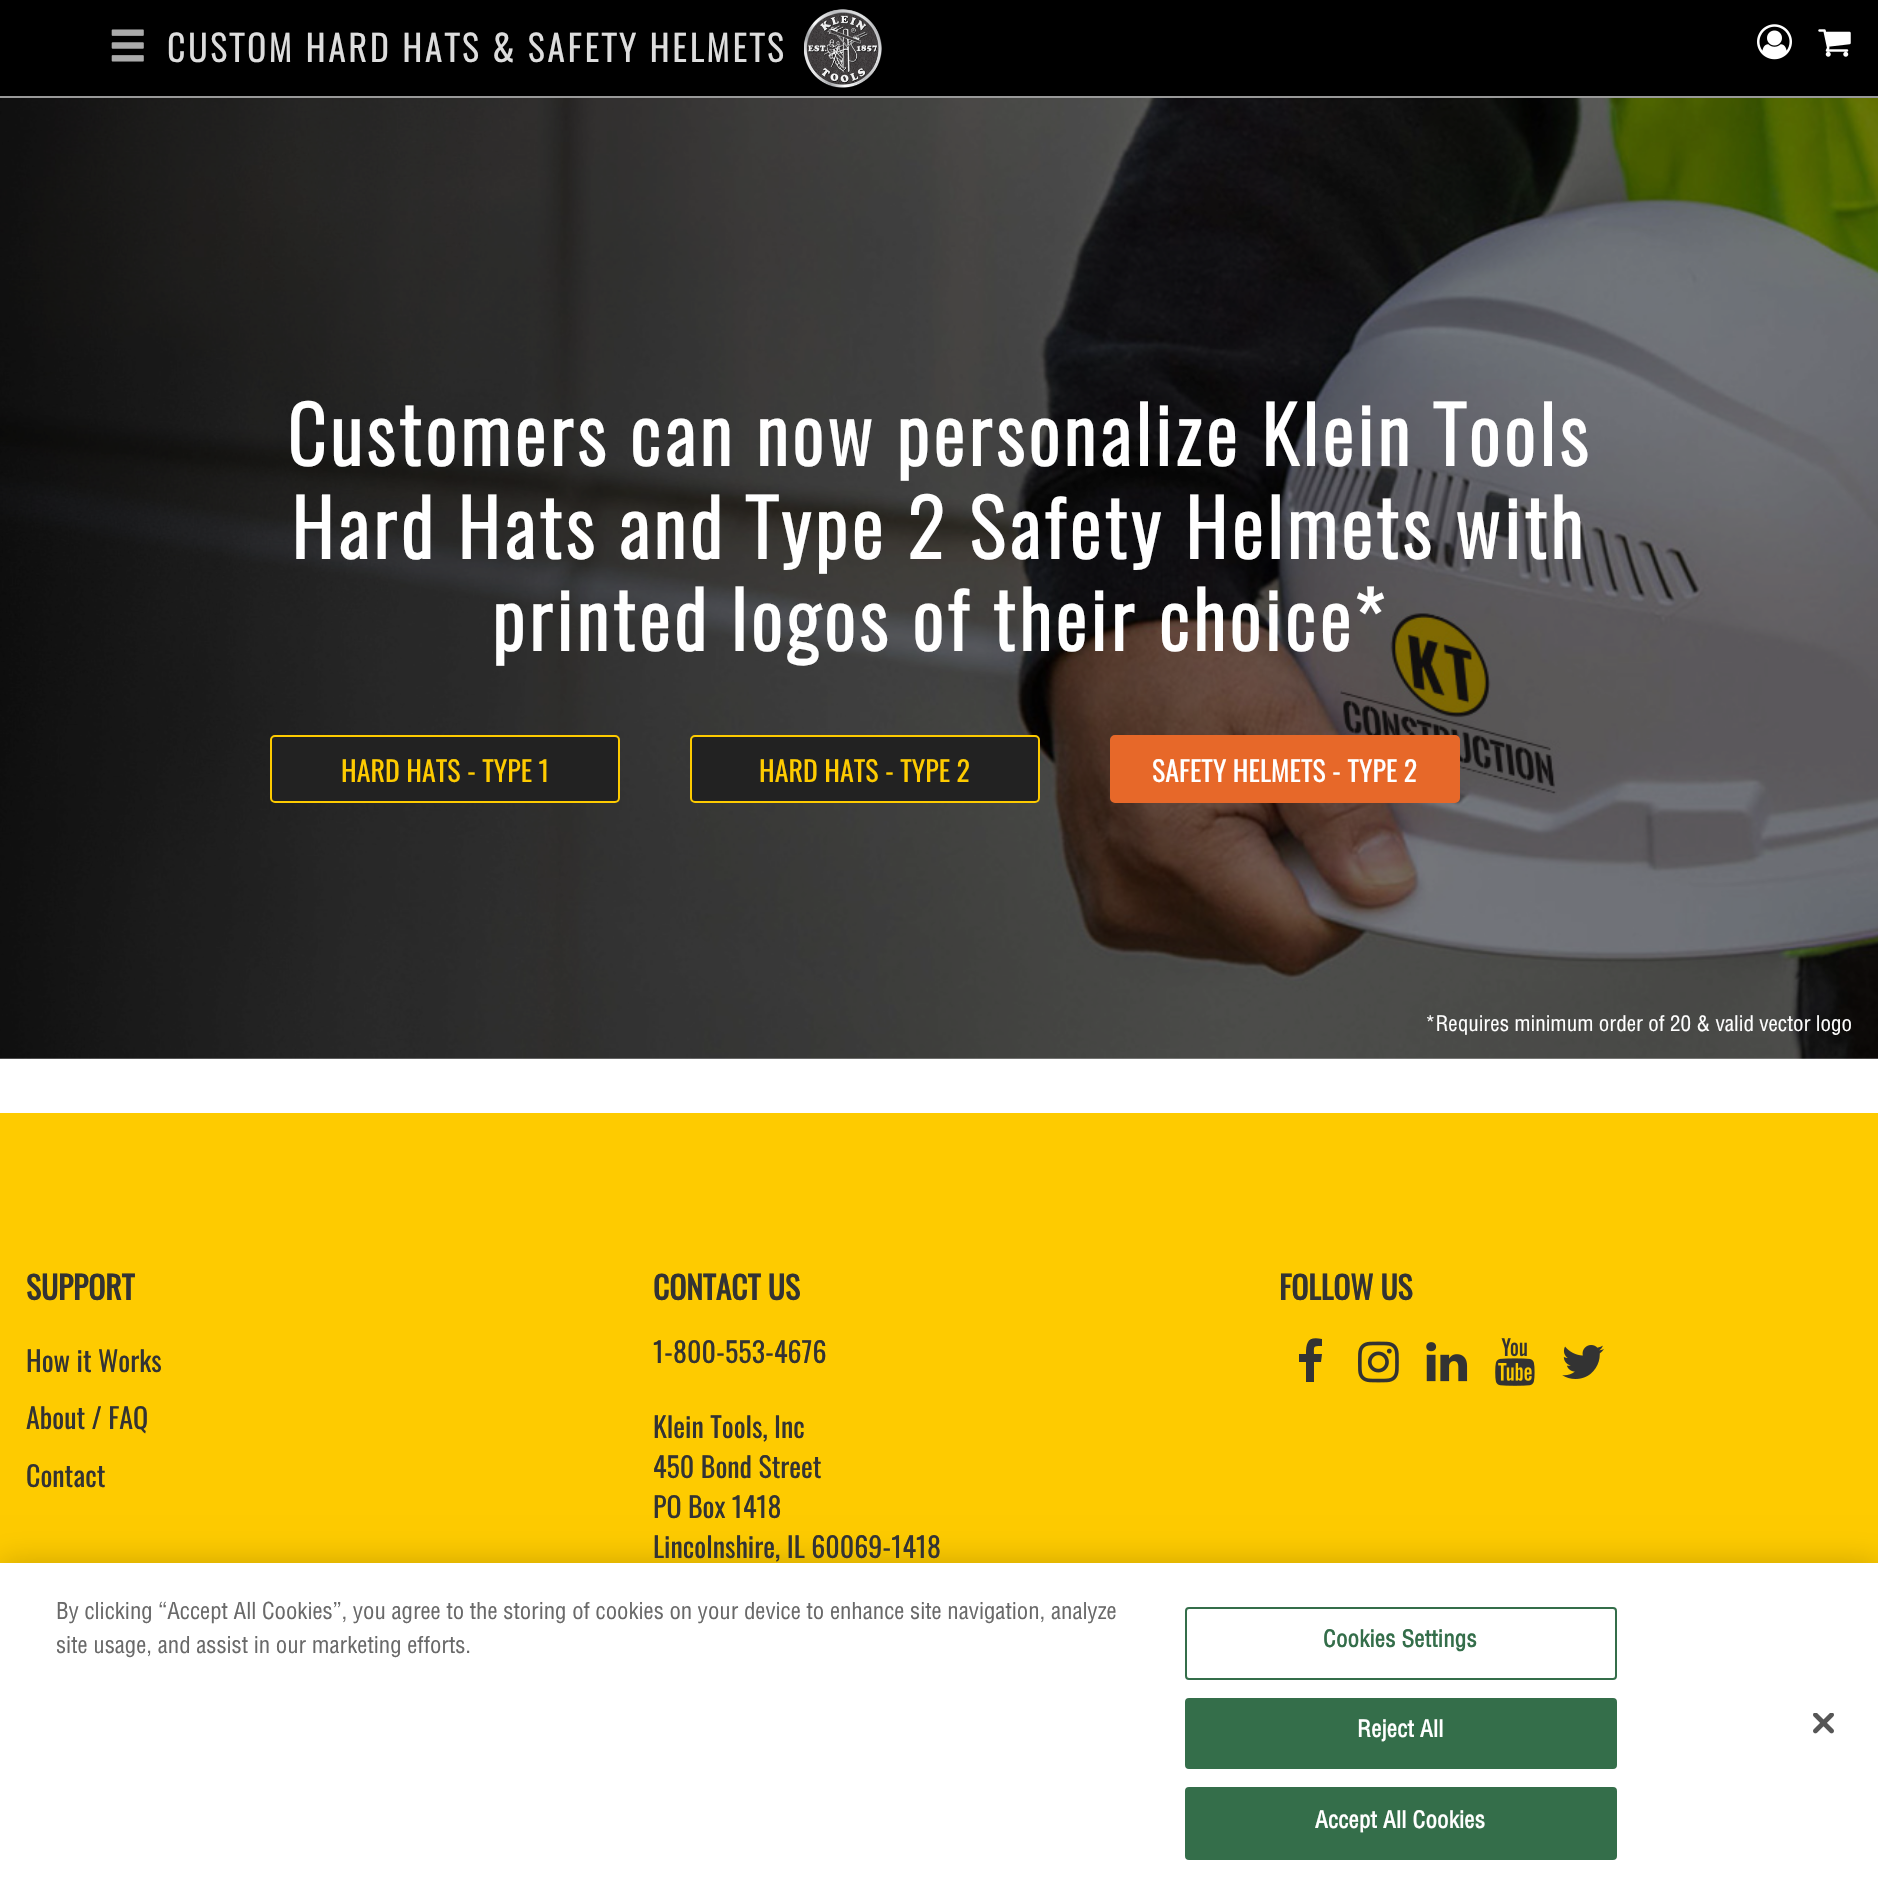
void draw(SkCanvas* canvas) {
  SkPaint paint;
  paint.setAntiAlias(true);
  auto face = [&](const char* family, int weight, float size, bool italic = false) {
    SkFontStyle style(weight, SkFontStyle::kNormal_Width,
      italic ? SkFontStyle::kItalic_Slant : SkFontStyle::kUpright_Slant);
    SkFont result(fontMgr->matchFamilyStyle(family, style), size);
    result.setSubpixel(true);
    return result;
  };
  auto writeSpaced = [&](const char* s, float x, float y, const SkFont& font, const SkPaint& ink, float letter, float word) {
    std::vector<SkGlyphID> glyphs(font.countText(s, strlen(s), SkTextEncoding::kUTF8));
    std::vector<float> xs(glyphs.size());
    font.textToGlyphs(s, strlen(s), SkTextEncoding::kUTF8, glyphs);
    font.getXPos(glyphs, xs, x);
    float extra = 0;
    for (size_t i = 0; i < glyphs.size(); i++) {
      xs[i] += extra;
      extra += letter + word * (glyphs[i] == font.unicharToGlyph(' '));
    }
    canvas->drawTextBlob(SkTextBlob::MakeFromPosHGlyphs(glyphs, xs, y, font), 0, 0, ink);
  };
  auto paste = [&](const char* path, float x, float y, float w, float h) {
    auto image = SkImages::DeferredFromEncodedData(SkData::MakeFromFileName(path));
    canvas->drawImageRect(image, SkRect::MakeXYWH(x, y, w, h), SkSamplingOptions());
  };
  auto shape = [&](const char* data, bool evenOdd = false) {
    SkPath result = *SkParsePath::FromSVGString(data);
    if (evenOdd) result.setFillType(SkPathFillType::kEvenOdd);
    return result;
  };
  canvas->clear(0xffffffff);
  paint.setColor(0xff000000);
  canvas->drawRect(SkRect::MakeXYWH(0, 0, 1878, 96), paint);
  paste("img/1.png", 111, 29, 33, 33);
  paste("img/2.png", 804, 9, 78, 79);
  paint.setColor(0xff999999);
  canvas->drawRect(SkRect::MakeXYWH(0, 96, 1878, 2), paint);
  paste("img/3.png", 1757, 24, 35, 36);
  paste("img/4.png", 1818, 29, 33, 28);
  paste("img/5.png", 0, 98, 1878, 961);
  paint.setColor(0xff222222);
  canvas->drawRoundRect(SkRect::MakeXYWH(271, 736, 348, 66), 4, 4, paint);
  paint.setStroke(true);
  paint.setStrokeWidth(2);
  paint.setColor(0xfffecb00);
  canvas->drawRoundRect(SkRect::MakeXYWH(271, 736, 348, 66), 4, 4, paint);
  paint.setStroke(false);
  paint.setColor(0xff222222);
  canvas->drawRoundRect(SkRect::MakeXYWH(691, 736, 348, 66), 4, 4, paint);
  paint.setStroke(true);
  paint.setColor(0xfffecb00);
  canvas->drawRoundRect(SkRect::MakeXYWH(691, 736, 348, 66), 4, 4, paint);
  paint.setStroke(false);
  paint.setColor(0xffe76829);
  canvas->drawRoundRect(SkRect::MakeXYWH(1111, 736, 348, 66), 4, 4, paint);
  paint.setStroke(true);
  canvas->drawRoundRect(SkRect::MakeXYWH(1111, 736, 348, 66), 4, 4, paint);
  paint.setStroke(false);
  paint.setColor(0xfffecb00);
  canvas->drawRect(SkRect::MakeXYWH(0, 1113, 1878, 450), paint);
  paint.setColor(0xff333333);
  canvas->drawPath(shape("M1322 1339V1346C1313 1346 1314 1346 1314 1354H1322L1321 1362H1314V1382H1306V1362H1299V1354H1306C1306 1342 1308 1336 1322 1339Z"), paint);
  paste("img/6.png", 1358, 1341, 41, 42);
  paste("img/7.png", 1426, 1342, 42, 40);
  paste("img/8.png", 1495, 1338, 40, 48);
  paste("img/9.png", 1562, 1345, 42, 34);
  paint.setColor(0x33000000);
  paint.setMaskFilter(SkMaskFilter::MakeBlur(kNormal_SkBlurStyle, 16));
  canvas->drawRect(SkRect::MakeXYWH(0, 1563, 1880, 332), paint);
  paint.setMaskFilter(nullptr);
  paint.setColor(0xffffffff);
  canvas->drawRect(SkRect::MakeXYWH(0, 1563, 1878, 331), paint);
  paint.setStroke(true);
  paint.setColor(0xff346e4a);
  canvas->drawRoundRect(SkRect::MakeXYWH(1186, 1608, 430, 71), 3, 3, paint);
  paint.setStroke(false);
  canvas->drawRoundRect(SkRect::MakeXYWH(1186, 1699, 430, 69), 3, 3, paint);
  paint.setStroke(true);
  canvas->drawRoundRect(SkRect::MakeXYWH(1186, 1699, 430, 69), 3, 3, paint);
  paint.setStroke(false);
  canvas->drawRoundRect(SkRect::MakeXYWH(1186, 1788, 430, 71), 3, 3, paint);
  paint.setStroke(true);
  canvas->drawRoundRect(SkRect::MakeXYWH(1186, 1788, 430, 71), 3, 3, paint);
  paste("img/10.png", 1813, 1713, 21, 21);
  auto f0 = face("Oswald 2", 700, 35);
  paint.setStroke(false);
  paint.setColor(0xffdddddd);
  writeSpaced("CUSTOM HARD HATS & SAFETY HELMETS", 167, 62, f0, paint, 3.5f, 0);
  auto f1 = face("Oswald 2", 700, 77);
  paint.setColor(0xffffffff);
  {
    const struct { const char* s; float x, y; } items[] = {
      {"Customers can now personalize Klein Tools", 287, 466},
      {"Hard Hats and Type 2 Safety Helmets with", 291, 559},
      {"printed logos of their choice*", 492, 651},
    };
    for (auto [s, x, y] : items) {
      writeSpaced(s, x, y, f1, paint, 4.6f, 0);
    }
  }
  auto f2 = face("Oswald", 400, 28);
  paint.setColor(0xfffecb00);
  canvas->drawString("HARD HATS - TYPE 1", 341, 782, f2, paint);
  canvas->drawString("HARD HATS - TYPE 2", 759, 782, f2, paint);
  paint.setColor(0xffffffff);
  canvas->drawString("SAFETY HELMETS - TYPE 2", 1152, 782, f2, paint);
  auto f3 = face("Helvetica", 400, 21);
  canvas->drawString("*Requires minimum order of 20 & valid vector logo", 1425, 1031, f3, paint);
  auto f4 = face("Oswald", 700, 31.5f);
  paint.setColor(0xff333333);
  canvas->drawString("SUPPORT", 26, 1300, f4, paint);
  {
    const struct { const char* s; float x, y; } items[] = {
      {"How it Works", 26, 1372},
      {"About / FAQ", 26, 1429},
      {"Contact", 26, 1487},
    };
    for (auto [s, x, y] : items) {
      canvas->drawString(s, x, y, f2, paint);
    }
  }
  canvas->drawString("CONTACT US", 653, 1300, f4, paint);
  {
    const struct { const char* s; float x, y; } items[] = {
      {"1-800-553-4676", 653, 1363},
      {"Klein Tools, Inc", 653, 1438},
      {"450 Bond Street", 653, 1478},
      {"PO Box 1418", 653, 1518},
      {"Lincolnshire, IL 60069-1418", 653, 1558},
    };
    for (auto [s, x, y] : items) {
      canvas->drawString(s, x, y, f2, paint);
    }
  }
  canvas->drawString("FOLLOW US", 1279, 1300, f4, paint);
  auto f5 = face("Helvetica", 400, 22.75f);
  paint.setColor(0xff696969);
  canvas->drawString("By clicking “Accept All Cookies”, you agree to the storing of cookies on your device to enhance site navigation, analyze", 56, 1619, f5, paint);
  canvas->drawString("site usage, and assist in our marketing efforts.", 56, 1653, f5, paint);
  auto f6 = face("Helvetica", 700, 22.75f);
  paint.setColor(0xff346e4a);
  writeSpaced("Cookies Settings", 1323, 1647, f6, paint, 0.25f, 0);
  paint.setColor(0xffffffff);
  writeSpaced("Reject All", 1357, 1737, f6, paint, 0.25f, 0);
  writeSpaced("Accept All Cookies", 1315, 1828, f6, paint, 0.25f, 0);
}
